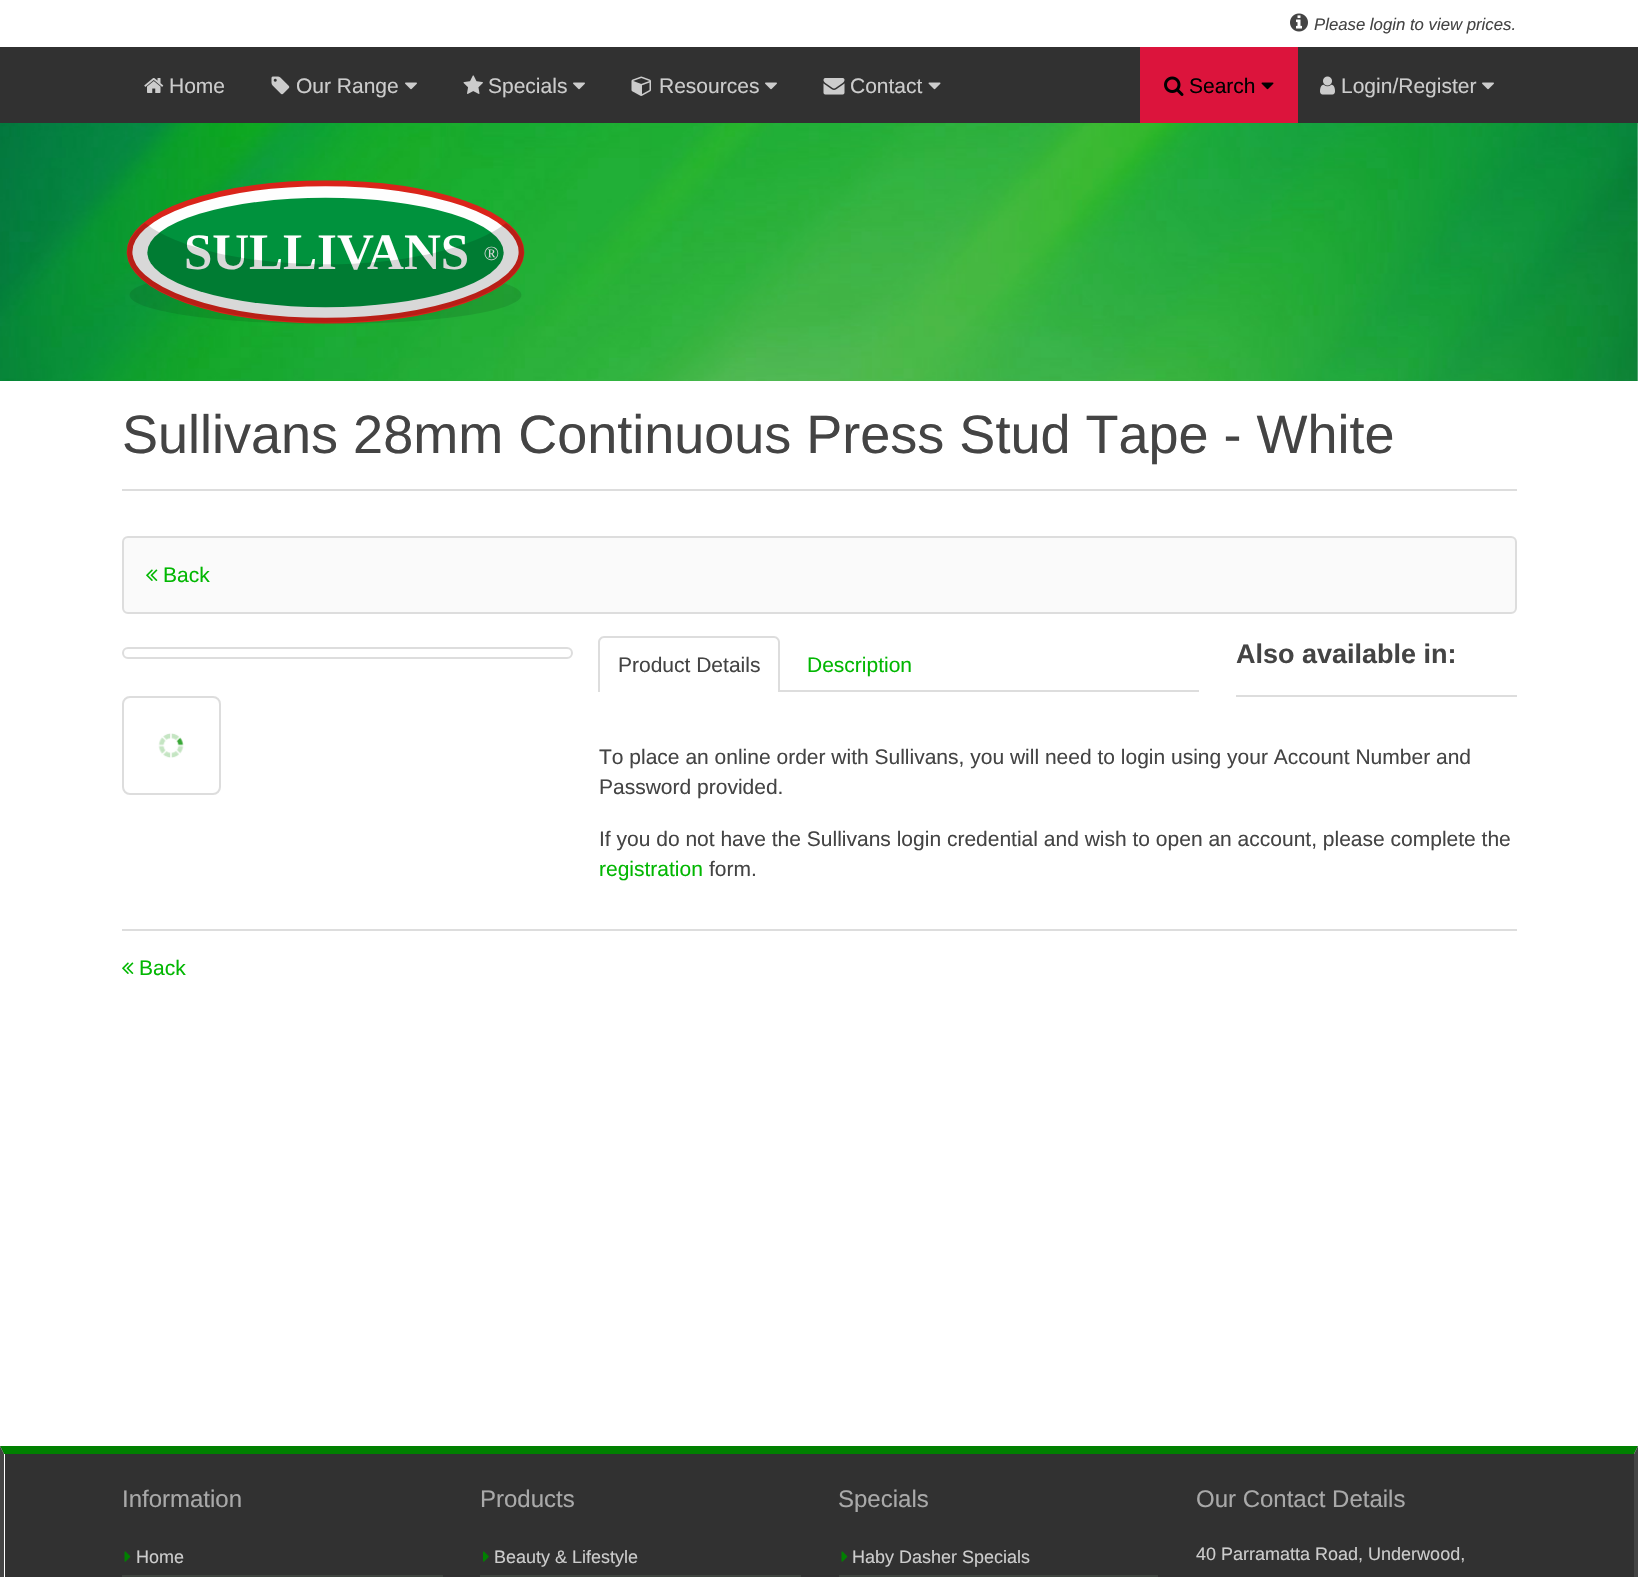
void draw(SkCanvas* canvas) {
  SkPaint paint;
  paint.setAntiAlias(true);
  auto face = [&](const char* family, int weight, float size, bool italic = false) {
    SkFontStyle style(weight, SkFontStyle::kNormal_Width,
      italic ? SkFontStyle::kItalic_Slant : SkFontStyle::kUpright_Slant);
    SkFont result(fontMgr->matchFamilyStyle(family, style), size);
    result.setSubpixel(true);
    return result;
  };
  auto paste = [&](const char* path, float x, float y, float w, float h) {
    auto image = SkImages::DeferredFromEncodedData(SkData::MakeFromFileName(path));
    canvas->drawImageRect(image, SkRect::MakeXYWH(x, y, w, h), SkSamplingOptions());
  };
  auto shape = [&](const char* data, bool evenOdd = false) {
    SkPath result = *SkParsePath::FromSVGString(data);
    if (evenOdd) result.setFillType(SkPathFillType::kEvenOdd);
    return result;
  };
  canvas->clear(0xffffffff);
  paste("img/1.png", 1290, 13, 18, 19);
  paint.setColor(0x4d323232);
  paint.setMaskFilter(SkMaskFilter::MakeBlur(kNormal_SkBlurStyle, 2));
  canvas->drawRect(SkRect::MakeXYWH(0, 51, 1638, 77), paint);
  paint.setMaskFilter(nullptr);
  paint.setColor(0xff313131);
  canvas->drawRect(SkRect::MakeXYWH(0, 47, 1638, 76), paint);
  paste("img/2.png", 144, 78, 20, 15);
  paste("img/3.png", 271, 76, 19, 19);
  paste("img/4.png", 405, 82, 12, 8);
  paste("img/5.png", 463, 75, 20, 19);
  paste("img/4.png", 573, 82, 12, 8);
  paste("img/6.png", 631, 76, 20, 20);
  paste("img/4.png", 765, 82, 12, 8);
  paste("img/7.png", 823, 78, 22, 17);
  paste("img/8.png", 928, 82, 13, 8);
  paint.setColor(0xffdc143c);
  canvas->drawRect(SkRect::MakeXYWH(1140, 47, 158, 76), paint);
  paste("img/9.png", 1164, 76, 20, 20);
  paste("img/10.png", 1261, 82, 13, 8);
  paste("img/11.png", 1320, 76, 15, 19);
  paste("img/4.png", 1482, 82, 12, 8);
  paste("img/12.png", 0, 123, 1638, 258);
  paste("img/13.png", 126, 180, 399, 144);
  paint.setColor(0xffdddddd);
  canvas->drawRect(SkRect::MakeXYWH(122, 489, 1395, 2), paint);
  paint.setColor(0xfffafafa);
  canvas->drawRoundRect(SkRect::MakeXYWH(123, 537, 1393, 76), 5, 5, paint);
  paint.setStroke(true);
  paint.setStrokeWidth(2);
  paint.setColor(0xffdddddd);
  canvas->drawRoundRect(SkRect::MakeXYWH(123, 537, 1393, 76), 5, 5, paint);
  paste("img/14.png", 146, 569, 12, 12);
  canvas->drawRoundRect(SkRect::MakeXYWH(123, 648, 449, 10), 5, 5, paint);
  canvas->drawRoundRect(SkRect::MakeXYWH(123, 697, 97, 97), 7, 7, paint);
  paste("img/15.png", 158, 733, 26, 25);
  paint.setStroke(false);
  canvas->drawRect(SkRect::MakeXYWH(1236, 695, 281, 2), paint);
  canvas->drawRect(SkRect::MakeXYWH(780, 690, 419, 2), paint);
  canvas->drawPath(shape("M604 636H774C777 636 780 639 780 642V692H598V642C598 639 601 636 604 636ZM604 638H774C776 638 778 640 778 642V692H600V642C600 640 602 638 604 638Z", true), paint);
  canvas->drawRect(SkRect::MakeXYWH(122, 929, 1395, 2), paint);
  paste("img/16.png", 122, 962, 12, 12);
  paint.setColor(0xff313131);
  canvas->drawRect(SkRect::MakeXYWH(5, 1454, 1629, 123), paint);
  paint.setColor(0xff008000);
  canvas->drawPath(shape("M0 1446H1638L1634 1454H4Z"), paint);
  paint.setColor(0xff444444);
  canvas->drawPath(shape("M1638 1446V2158L1634 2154V1454Z"), paint);
  canvas->drawPath(shape("M0 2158V1446L4 1454V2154Z"), paint);
  paint.setColor(0xff3f443f);
  canvas->drawRect(SkRect::MakeXYWH(122, 1575, 321, 2), paint);
  paste("img/17.png", 124, 1551, 7, 11);
  canvas->drawRect(SkRect::MakeXYWH(480, 1575, 321, 2), paint);
  paste("img/18.png", 483, 1551, 6, 11);
  canvas->drawRect(SkRect::MakeXYWH(839, 1575, 319, 2), paint);
  paste("img/17.png", 841, 1551, 7, 11);
  auto f0 = face("Liberation Sans", 400, 16.75f, true);
  paint.setColor(0xff444444);
  canvas->drawString("Please login to view prices.", 1314, 30, f0, paint);
  auto f1 = face("Liberation Sans", 400, 21);
  paint.setColor(0xffcccccc);
  {
    const struct { const char* s; float x, y; } items[] = {
      {"Home", 169, 93},
      {"Our Range", 296, 93},
      {"Specials", 488, 93},
      {"Resources", 659, 93},
      {"Contact", 850, 93},
    };
    for (auto [s, x, y] : items) {
      canvas->drawString(s, x, y, f1, paint);
    }
  }
  paint.setColor(0xff000000);
  canvas->drawString("Search", 1189, 93, f1, paint);
  paint.setColor(0xffcccccc);
  canvas->drawString("Login/Register", 1341, 93, f1, paint);
  auto f2 = face("Liberation Sans", 400, 54);
  paint.setColor(0xff444444);
  canvas->drawString("Sullivans 28mm Continuous Press Stud Tape - White", 122, 453, f2, paint);
  paint.setColor(0xff02b702);
  canvas->drawString("Back", 163, 582, f1, paint);
  auto f3 = face("Liberation Sans", 700, 27);
  paint.setColor(0xff444444);
  canvas->drawString("Also available in:", 1236, 663, f3, paint);
  canvas->drawString("Product Details", 618, 672, f1, paint);
  paint.setColor(0xff02b702);
  canvas->drawString("Description", 807, 672, f1, paint);
  paint.setColor(0xff444444);
  {
    const struct { const char* s; float x, y; } items[] = {
      {"To place an online order with Sullivans, you will need to login using your Account Number and", 599, 764},
      {"Password provided.", 599, 794},
      {"If you do not have the Sullivans login credential and wish to open an account, please complete the", 599, 846},
    };
    for (auto [s, x, y] : items) {
      canvas->drawString(s, x, y, f1, paint);
    }
  }
  paint.setColor(0xff02b702);
  canvas->drawString("registration", 599, 876, f1, paint);
  paint.setColor(0xff444444);
  canvas->drawString("form.", 709, 876, f1, paint);
  paint.setColor(0xff02b702);
  canvas->drawString("Back", 139, 975, f1, paint);
  auto f4 = face("Liberation Sans", 400, 24);
  paint.setColor(0xffa9a9a9);
  canvas->drawString("Information", 122, 1507, f4, paint);
  auto f5 = face("Liberation Sans", 400, 18);
  paint.setColor(0xffcccccc);
  canvas->drawString("Home", 136, 1563, f5, paint);
  paint.setColor(0xffa9a9a9);
  canvas->drawString("Products", 480, 1507, f4, paint);
  paint.setColor(0xffcccccc);
  canvas->drawString("Beauty & Lifestyle", 494, 1563, f5, paint);
  paint.setColor(0xffa9a9a9);
  canvas->drawString("Specials", 838, 1507, f4, paint);
  paint.setColor(0xffcccccc);
  canvas->drawString("Haby Dasher Specials", 852, 1563, f5, paint);
  paint.setColor(0xffa9a9a9);
  canvas->drawString("Our Contact Details", 1196, 1507, f4, paint);
  paint.setColor(0xffcccccc);
  canvas->drawString("40 Parramatta Road, Underwood,", 1196, 1560, f5, paint);
}
